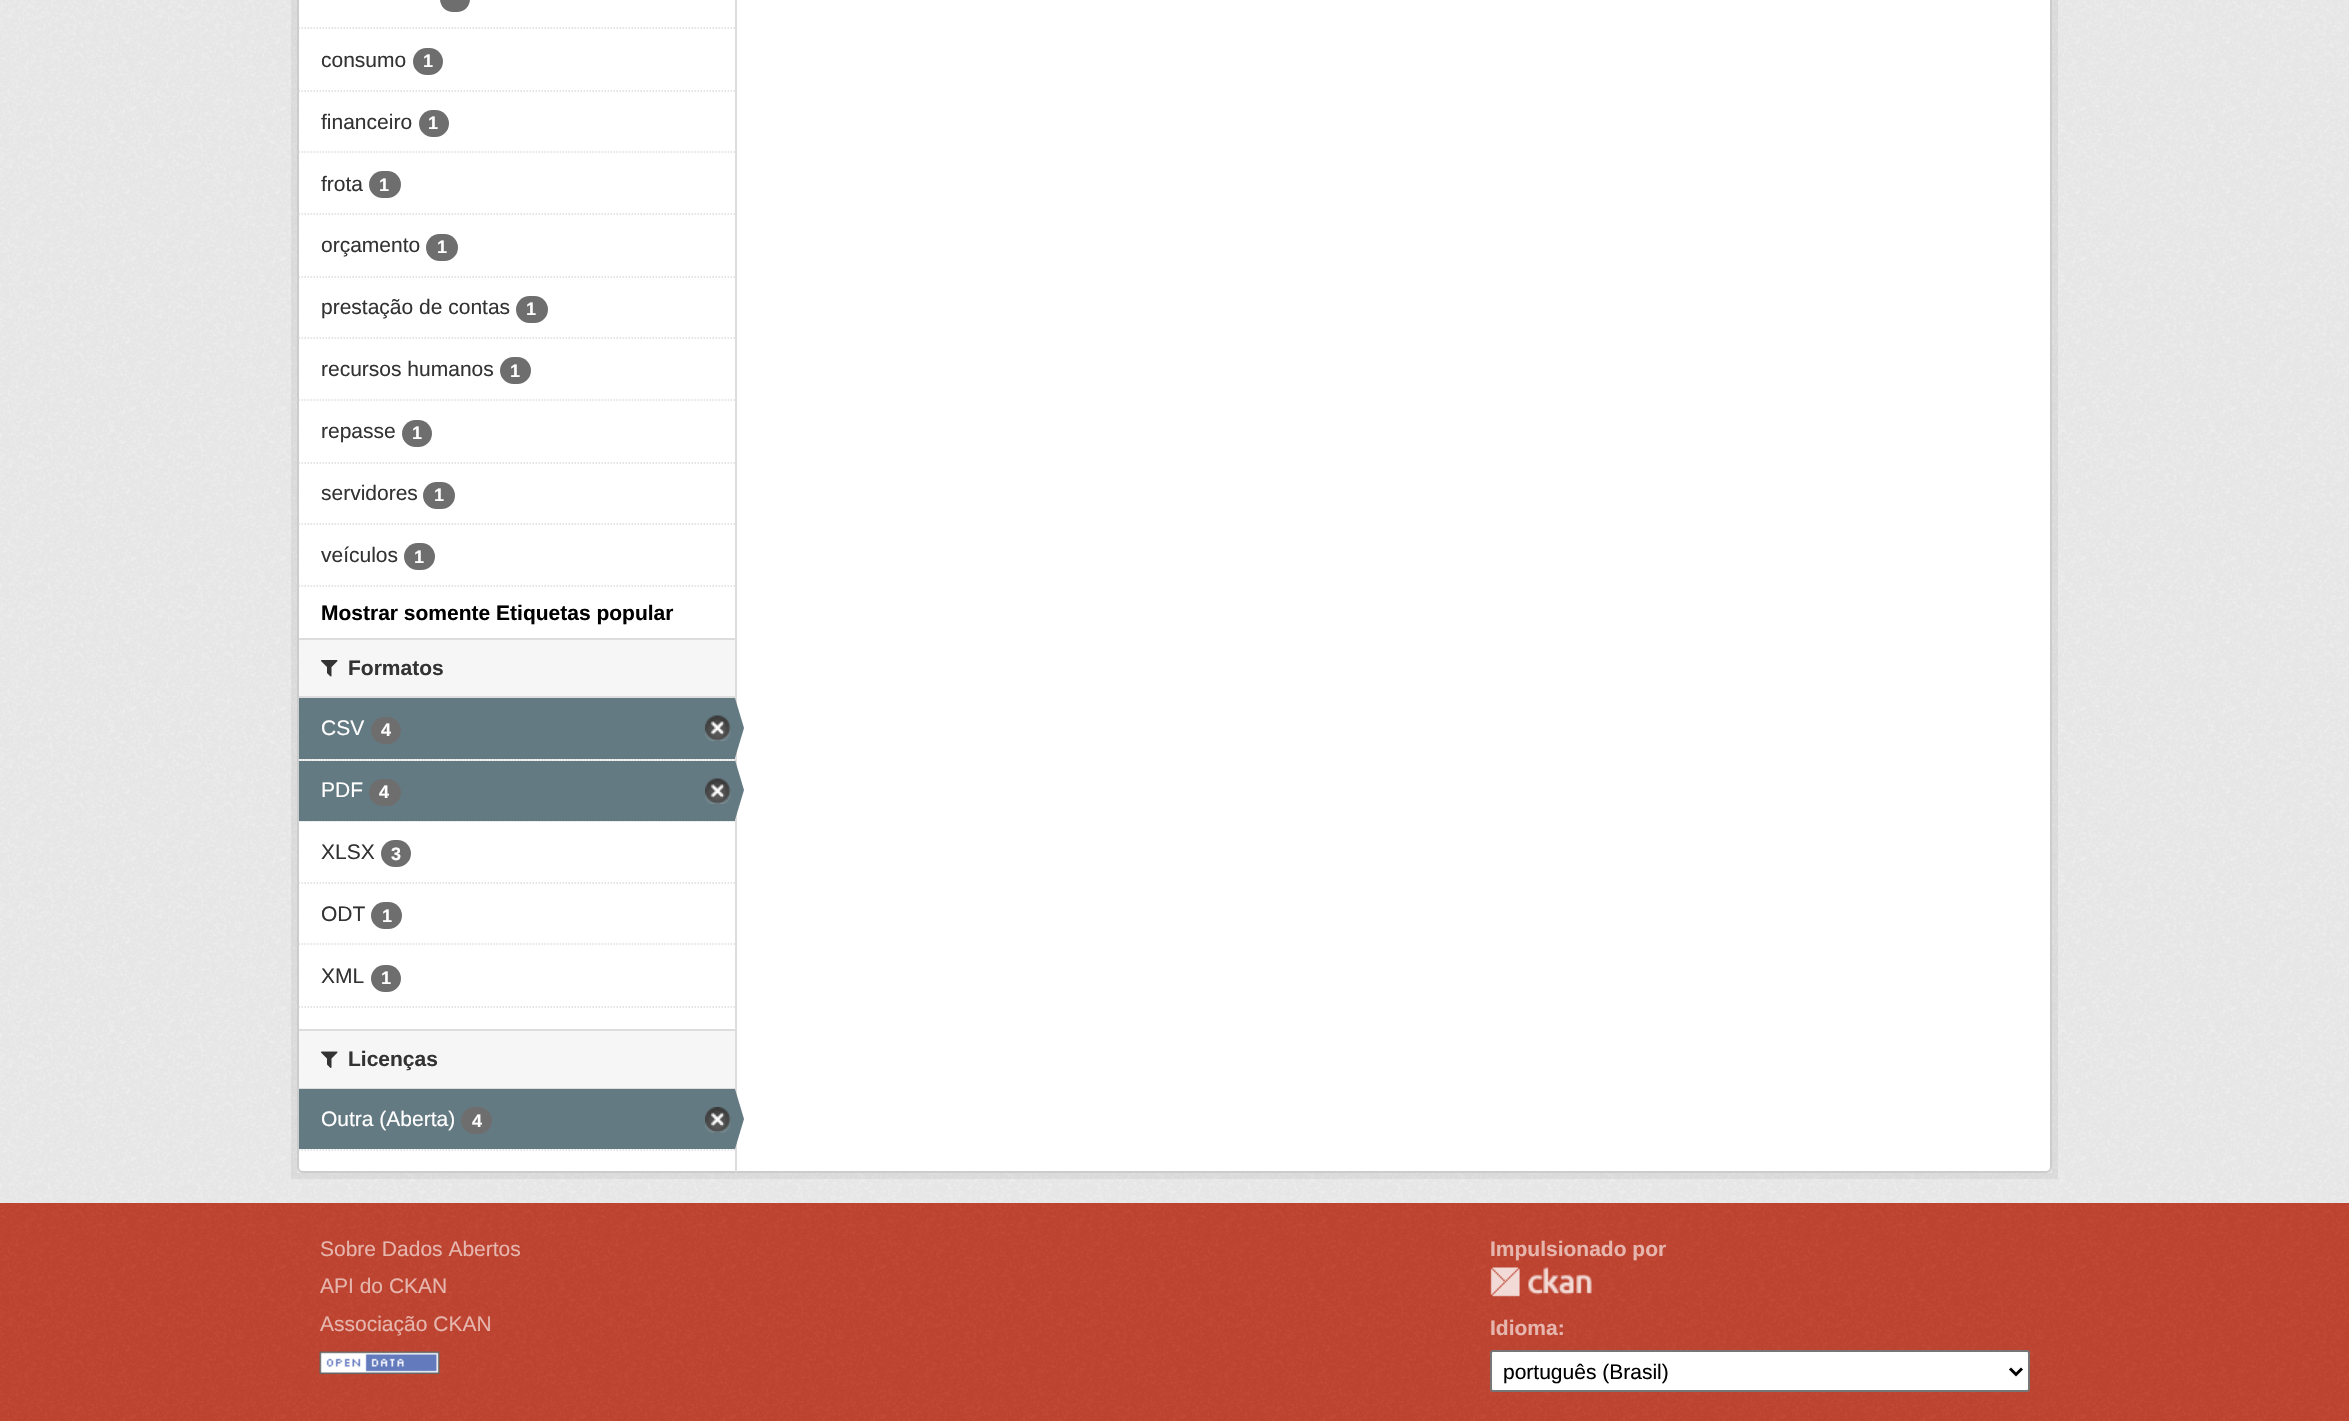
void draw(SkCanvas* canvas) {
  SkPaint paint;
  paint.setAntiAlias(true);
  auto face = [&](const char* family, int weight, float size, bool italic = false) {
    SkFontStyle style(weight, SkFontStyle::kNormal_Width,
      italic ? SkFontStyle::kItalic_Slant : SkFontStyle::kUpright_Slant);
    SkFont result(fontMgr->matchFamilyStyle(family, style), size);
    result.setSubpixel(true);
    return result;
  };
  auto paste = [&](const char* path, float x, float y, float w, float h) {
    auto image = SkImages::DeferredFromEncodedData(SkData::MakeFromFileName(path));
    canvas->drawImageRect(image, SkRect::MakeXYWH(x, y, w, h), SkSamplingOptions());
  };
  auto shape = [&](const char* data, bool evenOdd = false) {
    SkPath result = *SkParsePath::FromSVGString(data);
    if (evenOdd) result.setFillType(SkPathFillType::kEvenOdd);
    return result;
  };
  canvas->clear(0xffc14531);
  paint.setColor(0xffeeeeee);
  canvas->drawRect(SkRect::MakeXYWH(0, 0, 2349, 1203), paint);
  paste("img/1.png", 0, 0, 2349, 1203);
  paint.setStroke(true);
  paint.setStrokeWidth(6);
  paint.setColor(0x0d000000);
  canvas->drawRect(SkRect::MakeXYWH(294, -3, 1761, 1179), paint);
  paint.setStroke(false);
  paint.setColor(0xffffffff);
  canvas->drawRoundRect(SkRect::MakeXYWH(298, -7, 1753, 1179), 5, 5, paint);
  paint.setStroke(true);
  paint.setStrokeWidth(2);
  paint.setColor(0xffcccccc);
  canvas->drawRoundRect(SkRect::MakeXYWH(298, -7, 1753, 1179), 5, 5, paint);
  paint.setStrokeWidth(1.5f);
  paint.setColor(0xffdddddd);
  paint.setPathEffect(SkDashPathEffect::Make({{1.5f, 1.5f}}, 0));
  canvas->drawPath(shape("M298.5 28H735"), paint);
  paint.setPathEffect(nullptr);
  paint.setStroke(false);
  paint.setColor(0xff6e6e6e);
  canvas->drawRoundRect(SkRect::MakeXYWH(440, -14, 30, 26), 13.5f, 13.5f, paint);
  paint.setStroke(true);
  paint.setColor(0xffdddddd);
  paint.setPathEffect(SkDashPathEffect::Make({{1.5f, 1.5f}}, 0));
  canvas->drawPath(shape("M298.5 91H735"), paint);
  paint.setPathEffect(nullptr);
  paint.setStroke(false);
  paint.setColor(0xff6e6e6e);
  canvas->drawRoundRect(SkRect::MakeXYWH(413, 48, 30, 27), 13.5f, 13.5f, paint);
  paint.setStroke(true);
  paint.setColor(0xffdddddd);
  paint.setPathEffect(SkDashPathEffect::Make({{1.5f, 1.5f}}, 0));
  canvas->drawPath(shape("M298.5 152H735"), paint);
  paint.setPathEffect(nullptr);
  paint.setStroke(false);
  paint.setColor(0xff6e6e6e);
  canvas->drawRoundRect(SkRect::MakeXYWH(419, 110, 30, 27), 13.5f, 13.5f, paint);
  paint.setStroke(true);
  paint.setColor(0xffdddddd);
  paint.setPathEffect(SkDashPathEffect::Make({{1.5f, 1.5f}}, 0));
  canvas->drawPath(shape("M298.5 214H735"), paint);
  paint.setPathEffect(nullptr);
  paint.setStroke(false);
  paint.setColor(0xff6e6e6e);
  canvas->drawRoundRect(SkRect::MakeXYWH(369, 171, 32, 27), 13.5f, 13.5f, paint);
  paint.setStroke(true);
  paint.setColor(0xffdddddd);
  paint.setPathEffect(SkDashPathEffect::Make({{1.5f, 1.5f}}, 0));
  canvas->drawPath(shape("M298.5 277H735"), paint);
  paint.setPathEffect(nullptr);
  paint.setStroke(false);
  paint.setColor(0xff6e6e6e);
  canvas->drawRoundRect(SkRect::MakeXYWH(426, 234, 32, 27), 13.5f, 13.5f, paint);
  paint.setStroke(true);
  paint.setColor(0xffdddddd);
  paint.setPathEffect(SkDashPathEffect::Make({{1.5f, 1.5f}}, 0));
  canvas->drawPath(shape("M298.5 338H735"), paint);
  paint.setPathEffect(nullptr);
  paint.setStroke(false);
  paint.setColor(0xff6e6e6e);
  canvas->drawRoundRect(SkRect::MakeXYWH(516, 296, 32, 27), 13.5f, 13.5f, paint);
  paint.setStroke(true);
  paint.setColor(0xffdddddd);
  paint.setPathEffect(SkDashPathEffect::Make({{1.5f, 1.5f}}, 0));
  canvas->drawPath(shape("M298.5 400H735"), paint);
  paint.setPathEffect(nullptr);
  paint.setStroke(false);
  paint.setColor(0xff6e6e6e);
  canvas->drawRoundRect(SkRect::MakeXYWH(500, 357, 31, 27), 13.5f, 13.5f, paint);
  paint.setStroke(true);
  paint.setColor(0xffdddddd);
  paint.setPathEffect(SkDashPathEffect::Make({{1.5f, 1.5f}}, 0));
  canvas->drawPath(shape("M298.5 463H735"), paint);
  paint.setPathEffect(nullptr);
  paint.setStroke(false);
  paint.setColor(0xff6e6e6e);
  canvas->drawRoundRect(SkRect::MakeXYWH(402, 420, 30, 27), 13.5f, 13.5f, paint);
  paint.setStroke(true);
  paint.setColor(0xffdddddd);
  paint.setPathEffect(SkDashPathEffect::Make({{1.5f, 1.5f}}, 0));
  canvas->drawPath(shape("M298.5 524H735"), paint);
  paint.setPathEffect(nullptr);
  paint.setStroke(false);
  paint.setColor(0xff6e6e6e);
  canvas->drawRoundRect(SkRect::MakeXYWH(423, 482, 32, 27), 13.5f, 13.5f, paint);
  canvas->drawRoundRect(SkRect::MakeXYWH(404, 543, 31, 27), 13.5f, 13.5f, paint);
  paint.setStroke(true);
  paint.setColor(0xffdddddd);
  paint.setPathEffect(SkDashPathEffect::Make({{1.5f, 1.5f}}, 0));
  canvas->drawPath(shape("M298.5 586H735"), paint);
  paint.setPathEffect(nullptr);
  paint.setStroke(false);
  {
    const struct { float x, y, w, h; SkColor color; } items[] = {
      {299, 640, 436, 56, 0xfff6f6f6},
      {299, 638, 436, 2, 0xffdddddd},
      {299, 696, 436, 2, 0xffdddddd},
    };
    for (auto [x, y, w, h, color] : items) {
      paint.setColor(color);
      canvas->drawRect(SkRect::MakeXYWH(x, y, w, h), paint);
    }
  }
  paste("img/2.png", 321, 660, 17, 17);
  paint.setColor(0xfff6f6f6);
  canvas->drawRect(SkRect::MakeXYWH(299, 759, 436, 2), paint);
  paint.setStroke(true);
  paint.setColor(0xffdddddd);
  paint.setPathEffect(SkDashPathEffect::Make({{1.5f, 1.5f}}, 0));
  canvas->drawPath(shape("M298.5 760H735"), paint);
  paint.setPathEffect(nullptr);
  paint.setStroke(false);
  paint.setColor(0xff647a82);
  canvas->drawRect(SkRect::MakeXYWH(299, 698, 436, 61), paint);
  paint.setColor(0xff6e6e6e);
  canvas->drawRoundRect(SkRect::MakeXYWH(371, 717, 30, 27), 13.5f, 13.5f, paint);
  paste("img/3.png", 705, 715, 26, 26);
  paint.setColor(0xffdddddd);
  canvas->drawRect(SkRect::MakeXYWH(735, 0, 2, 1172), paint);
  paint.setColor(0xff647a82);
  canvas->drawPath(shape("M735 758V698L744 728Z"), paint);
  paint.setColor(0xfff6f6f6);
  canvas->drawRect(SkRect::MakeXYWH(299, 821, 436, 1), paint);
  paint.setStroke(true);
  paint.setColor(0xffdddddd);
  paint.setPathEffect(SkDashPathEffect::Make({{1.5f, 1.5f}}, 0));
  canvas->drawPath(shape("M298.5 821H735"), paint);
  paint.setPathEffect(nullptr);
  paint.setStroke(false);
  paint.setColor(0xff647a82);
  canvas->drawRect(SkRect::MakeXYWH(299, 761, 436, 60), paint);
  paint.setColor(0xff6e6e6e);
  canvas->drawRoundRect(SkRect::MakeXYWH(369, 779, 32, 27), 13.5f, 13.5f, paint);
  paste("img/3.png", 705, 778, 26, 26);
  paint.setColor(0xff647a82);
  canvas->drawPath(shape("M735 820V760L744 790Z"), paint);
  paint.setStroke(true);
  paint.setColor(0xffdddddd);
  paint.setPathEffect(SkDashPathEffect::Make({{1.5f, 1.5f}}, 0));
  canvas->drawPath(shape("M298.5 883H735"), paint);
  paint.setPathEffect(nullptr);
  paint.setStroke(false);
  paint.setColor(0xff6e6e6e);
  canvas->drawRoundRect(SkRect::MakeXYWH(381, 840, 30, 27), 13.5f, 13.5f, paint);
  paint.setStroke(true);
  paint.setColor(0xffdddddd);
  paint.setPathEffect(SkDashPathEffect::Make({{1.5f, 1.5f}}, 0));
  canvas->drawPath(shape("M298.5 944H735"), paint);
  paint.setPathEffect(nullptr);
  paint.setStroke(false);
  paint.setColor(0xff6e6e6e);
  canvas->drawRoundRect(SkRect::MakeXYWH(371, 902, 31, 27), 13.5f, 13.5f, paint);
  canvas->drawRoundRect(SkRect::MakeXYWH(371, 965, 30, 27), 13.5f, 13.5f, paint);
  paint.setStroke(true);
  paint.setColor(0xffdddddd);
  paint.setPathEffect(SkDashPathEffect::Make({{1.5f, 1.5f}}, 0));
  canvas->drawPath(shape("M298.5 1007H735"), paint);
  paint.setPathEffect(nullptr);
  paint.setStroke(false);
  {
    const struct { float x, y, w, h; SkColor color; } items[] = {
      {299, 1031, 436, 57, 0xfff6f6f6},
      {299, 1029, 436, 2, 0xffdddddd},
      {299, 1088, 436, 1, 0xffdddddd},
    };
    for (auto [x, y, w, h, color] : items) {
      paint.setColor(color);
      canvas->drawRect(SkRect::MakeXYWH(x, y, w, h), paint);
    }
  }
  paste("img/4.png", 321, 1051, 17, 17);
  paint.setColor(0xff647a82);
  canvas->drawRect(SkRect::MakeXYWH(299, 1089, 436, 60), paint);
  paint.setColor(0xff6e6e6e);
  canvas->drawRoundRect(SkRect::MakeXYWH(461, 1107, 31, 27), 13.5f, 13.5f, paint);
  paste("img/5.png", 705, 1107, 26, 26);
  paint.setColor(0xff647a82);
  canvas->drawPath(shape("M735 1149V1089L744 1119Z"), paint);
  paint.setStroke(true);
  paint.setColor(0xffdddddd);
  paint.setPathEffect(SkDashPathEffect::Make({{1.5f, 1.5f}}, 0));
  canvas->drawPath(shape("M298.5 1150H735"), paint);
  paint.setPathEffect(nullptr);
  paste("img/6.png", 0, 1203, 2349, 218);
  paste("img/7.png", 319, 1351, 121, 23);
  paste("img/8.png", 1490, 1267, 102, 30);
  paint.setStroke(false);
  paint.setColor(0xffffffff);
  canvas->drawRoundRect(SkRect::MakeXYWH(1491, 1351, 538, 40), 2, 2, paint);
  paint.setStroke(true);
  paint.setStrokeWidth(2);
  paint.setColor(0xff767676);
  canvas->drawRoundRect(SkRect::MakeXYWH(1491, 1351, 538, 40), 2, 2, paint);
  paint.setStrokeWidth(3);
  paint.setColor(0xff000000);
  canvas->drawPath(shape("M2010 1368.5L2016 1374.5L2022 1368.5"), paint);
  auto f0 = face("Liberation Sans", 400, 21);
  paint.setStroke(false);
  paint.setColor(0xff333333);
  canvas->drawString("consumo", 321, 67, f0, paint);
  auto f1 = face("Liberation Sans", 700, 18);
  paint.setColor(0xffffffff);
  canvas->drawString("1", 423, 67, f1, paint);
  paint.setColor(0xff333333);
  canvas->drawString("financeiro", 321, 129, f0, paint);
  paint.setColor(0xffffffff);
  canvas->drawString("1", 428, 129, f1, paint);
  paint.setColor(0xff333333);
  canvas->drawString("frota", 321, 191, f0, paint);
  paint.setColor(0xffffffff);
  canvas->drawString("1", 379, 191, f1, paint);
  paint.setColor(0xff333333);
  canvas->drawString("orçamento", 321, 252, f0, paint);
  paint.setColor(0xffffffff);
  canvas->drawString("1", 437, 253, f1, paint);
  paint.setColor(0xff333333);
  canvas->drawString("prestação de contas", 321, 314, f0, paint);
  paint.setColor(0xffffffff);
  canvas->drawString("1", 526, 315, f1, paint);
  paint.setColor(0xff333333);
  canvas->drawString("recursos humanos", 321, 376, f0, paint);
  paint.setColor(0xffffffff);
  canvas->drawString("1", 510, 377, f1, paint);
  paint.setColor(0xff333333);
  canvas->drawString("repasse", 321, 438, f0, paint);
  paint.setColor(0xffffffff);
  canvas->drawString("1", 412, 439, f1, paint);
  paint.setColor(0xff333333);
  canvas->drawString("servidores", 321, 500, f0, paint);
  paint.setColor(0xffffffff);
  canvas->drawString("1", 434, 501, f1, paint);
  paint.setColor(0xff333333);
  canvas->drawString("veículos", 321, 562, f0, paint);
  paint.setColor(0xffffffff);
  canvas->drawString("1", 414, 563, f1, paint);
  auto f2 = face("Liberation Sans", 700, 21);
  paint.setColor(0xff000000);
  canvas->drawString("Mostrar somente Etiquetas popular", 321, 620, f2, paint);
  paint.setColor(0xff333333);
  canvas->drawString("Formatos", 348, 675, f2, paint);
  paint.setColor(0xffffffff);
  canvas->drawString("CSV", 321, 735, f0, paint);
  canvas->drawString("4", 381, 736, f1, paint);
  canvas->drawString("PDF", 321, 797, f0, paint);
  canvas->drawString("4", 379, 798, f1, paint);
  paint.setColor(0xff333333);
  canvas->drawString("XLSX", 321, 859, f0, paint);
  paint.setColor(0xffffffff);
  canvas->drawString("3", 391, 860, f1, paint);
  paint.setColor(0xff333333);
  canvas->drawString("ODT", 321, 921, f0, paint);
  paint.setColor(0xffffffff);
  canvas->drawString("1", 382, 922, f1, paint);
  paint.setColor(0xff333333);
  canvas->drawString("XML", 321, 983, f0, paint);
  paint.setColor(0xffffffff);
  canvas->drawString("1", 381, 984, f1, paint);
  paint.setColor(0xff333333);
  canvas->drawString("Licenças", 348, 1066, f2, paint);
  paint.setColor(0xffffffff);
  canvas->drawString("Outra (Aberta)", 321, 1126, f0, paint);
  canvas->drawString("4", 472, 1127, f1, paint);
  paint.setColor(0xffe6b5ad);
  {
    const struct { const char* s; float x, y; } items[] = {
      {"Sobre Dados Abertos", 320, 1256},
      {"API do CKAN", 320, 1293},
      {"Associação CKAN", 320, 1331},
    };
    for (auto [s, x, y] : items) {
      canvas->drawString(s, x, y, f0, paint);
    }
  }
  canvas->drawString("Impulsionado por", 1490, 1256, f2, paint);
  canvas->drawString("Idioma:", 1490, 1335, f2, paint);
  paint.setColor(0xff000000);
  canvas->drawString("português (Brasil)", 1503, 1379, f0, paint);
}
